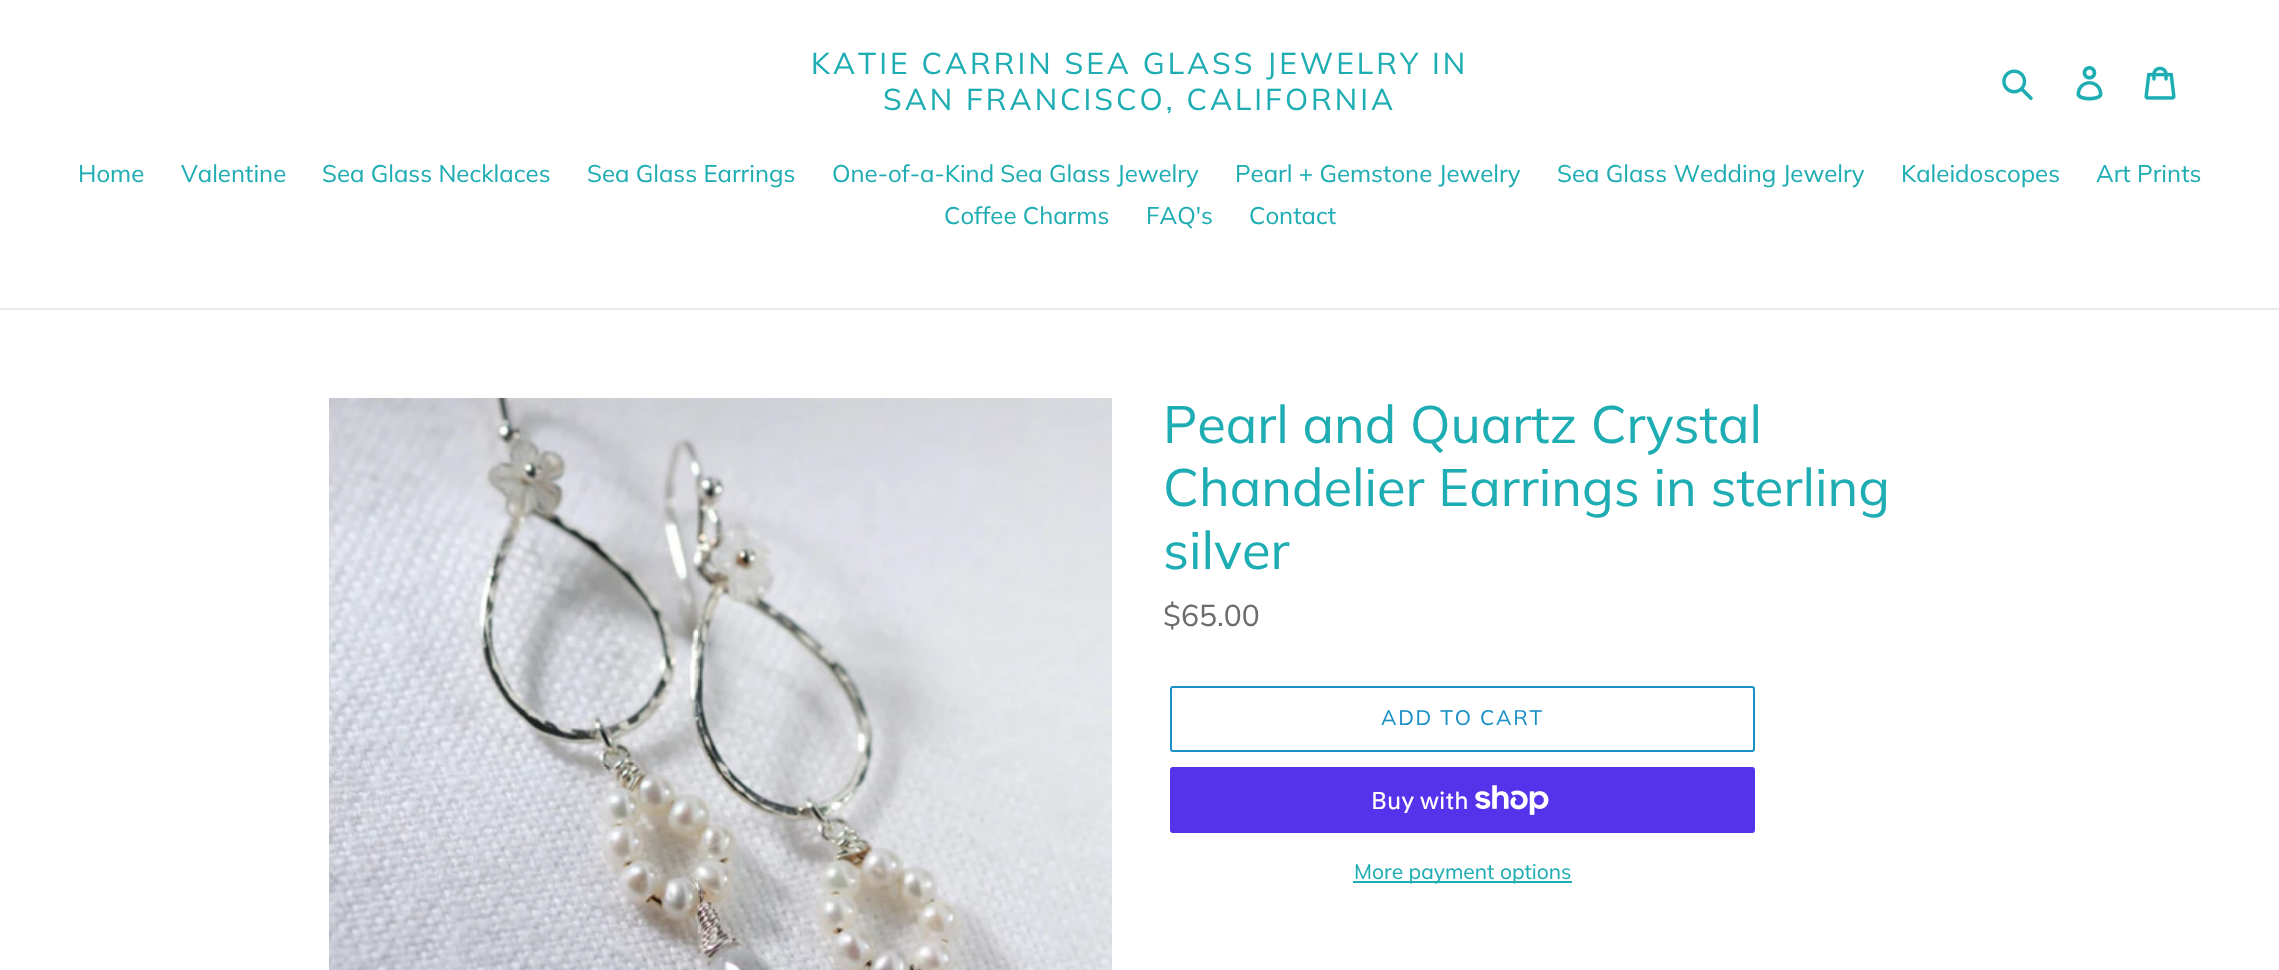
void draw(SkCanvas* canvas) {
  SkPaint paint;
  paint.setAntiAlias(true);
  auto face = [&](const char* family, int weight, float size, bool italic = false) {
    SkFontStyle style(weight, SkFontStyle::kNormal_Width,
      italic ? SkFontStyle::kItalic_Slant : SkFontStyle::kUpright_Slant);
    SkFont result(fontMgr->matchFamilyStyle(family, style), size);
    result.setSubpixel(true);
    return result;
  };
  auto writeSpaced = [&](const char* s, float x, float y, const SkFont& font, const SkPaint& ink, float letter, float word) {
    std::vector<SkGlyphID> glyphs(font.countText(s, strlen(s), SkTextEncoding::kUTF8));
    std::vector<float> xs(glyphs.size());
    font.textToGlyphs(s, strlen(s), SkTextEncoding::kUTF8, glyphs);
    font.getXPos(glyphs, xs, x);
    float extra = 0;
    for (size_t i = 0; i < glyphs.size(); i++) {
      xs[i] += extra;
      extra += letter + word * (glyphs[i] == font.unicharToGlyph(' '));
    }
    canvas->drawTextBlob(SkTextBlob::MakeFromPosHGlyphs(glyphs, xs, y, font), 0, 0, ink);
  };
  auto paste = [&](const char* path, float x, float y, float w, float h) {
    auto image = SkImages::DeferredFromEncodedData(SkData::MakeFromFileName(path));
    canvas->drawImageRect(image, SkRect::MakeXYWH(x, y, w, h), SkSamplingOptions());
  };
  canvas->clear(0xffffffff);
  paste("img/1.png", 2002, 69, 31, 31);
  paste("img/2.png", 2076, 66, 27, 35);
  paste("img/3.png", 2144, 66, 32, 34);
  paint.setColor(0xffe8e9eb);
  canvas->drawRect(SkRect::MakeXYWH(0, 308, 2279, 2), paint);
  paste("img/4.png", 329, 398, 783, 572);
  paint.setStroke(true);
  paint.setStrokeWidth(2);
  paint.setColor(0xff1990c6);
  canvas->drawRoundRect(SkRect::MakeXYWH(1171, 687, 583, 64), 2, 2, paint);
  paint.setStroke(false);
  paint.setColor(0xff5433eb);
  canvas->drawRoundRect(SkRect::MakeXYWH(1170, 767, 585, 66), 3, 3, paint);
  paste("img/5.png", 1475, 785, 74, 30);
  paint.setColor(0xff1eadb3);
  canvas->drawRect(SkRect::MakeXYWH(1353, 881, 219, 2), paint);
  auto f0 = face("Muli", 400, 30);
  writeSpaced("KATIE CARRIN SEA GLASS JEWELRY IN", 811, 74, f0, paint, 3, 0);
  writeSpaced("SAN FRANCISCO, CALIFORNIA", 883, 110, f0, paint, 3, 0);
  auto f1 = face("Muli", 400, 24);
  {
    const struct { const char* s; float x, y; } items[] = {
      {"Home", 78, 182},
      {"Valentine", 181, 182},
      {"Sea Glass Necklaces", 322, 182},
      {"Sea Glass Earrings", 587, 182},
      {"One-of-a-Kind Sea Glass Jewelry", 832, 182},
      {"Pearl + Gemstone Jewelry", 1235, 182},
      {"Sea Glass Wedding Jewelry", 1557, 182},
      {"Kaleidoscopes", 1901, 182},
      {"Art Prints", 2096, 182},
      {"Coffee Charms", 944, 224},
      {"FAQ's", 1146, 224},
      {"Contact", 1249, 224},
    };
    for (auto [s, x, y] : items) {
      canvas->drawString(s, x, y, f1, paint);
    }
  }
  auto f2 = face("Muli", 400, 52.5f);
  {
    const struct { const char* s; float x, y; } items[] = {
      {"Pearl and Quartz Crystal", 1163, 443},
      {"Chandelier Earrings in sterling", 1163, 506},
      {"silver", 1163, 569},
    };
    for (auto [s, x, y] : items) {
      canvas->drawString(s, x, y, f2, paint);
    }
  }
  paint.setColor(0xff6d6d6d);
  canvas->drawString("$65.00", 1163, 626, f0, paint);
  auto f3 = face("Muli", 400, 21);
  paint.setColor(0xff1990c6);
  writeSpaced("ADD TO CART", 1381, 725, f3, paint, 1.75f, 0);
  auto f4 = face("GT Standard", 400, 24);
  paint.setColor(0xffffffff);
  canvas->drawString("Buy with", 1371, 809, f4, paint);
  paint.setColor(0xff1eadb3);
  canvas->drawString("More payment options", 1354, 879, f3, paint);
}
